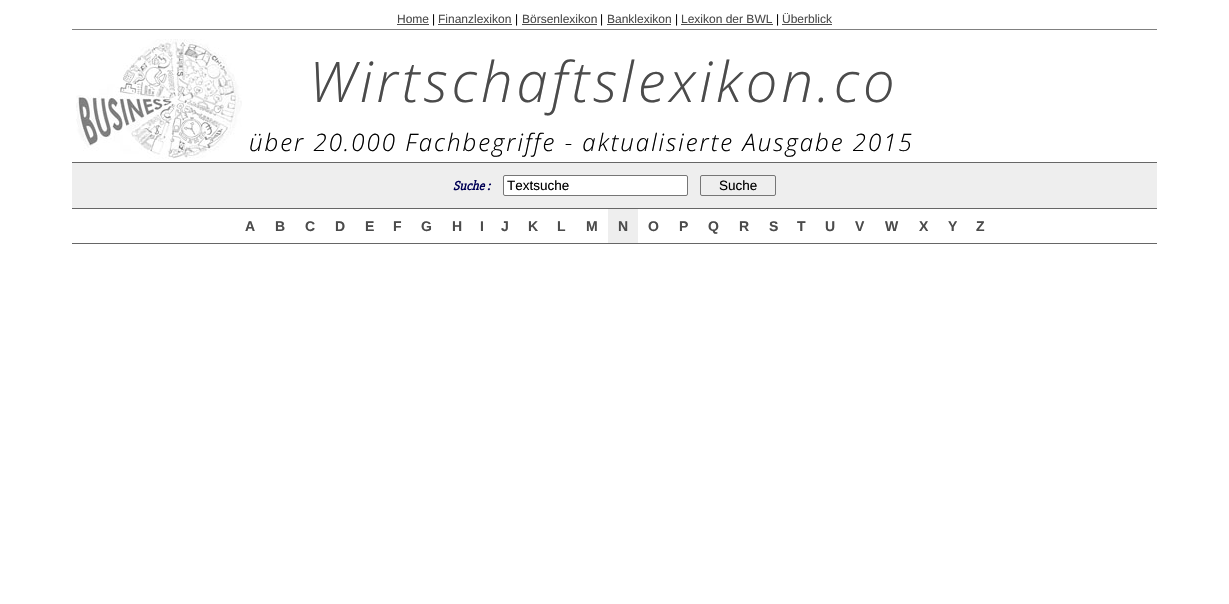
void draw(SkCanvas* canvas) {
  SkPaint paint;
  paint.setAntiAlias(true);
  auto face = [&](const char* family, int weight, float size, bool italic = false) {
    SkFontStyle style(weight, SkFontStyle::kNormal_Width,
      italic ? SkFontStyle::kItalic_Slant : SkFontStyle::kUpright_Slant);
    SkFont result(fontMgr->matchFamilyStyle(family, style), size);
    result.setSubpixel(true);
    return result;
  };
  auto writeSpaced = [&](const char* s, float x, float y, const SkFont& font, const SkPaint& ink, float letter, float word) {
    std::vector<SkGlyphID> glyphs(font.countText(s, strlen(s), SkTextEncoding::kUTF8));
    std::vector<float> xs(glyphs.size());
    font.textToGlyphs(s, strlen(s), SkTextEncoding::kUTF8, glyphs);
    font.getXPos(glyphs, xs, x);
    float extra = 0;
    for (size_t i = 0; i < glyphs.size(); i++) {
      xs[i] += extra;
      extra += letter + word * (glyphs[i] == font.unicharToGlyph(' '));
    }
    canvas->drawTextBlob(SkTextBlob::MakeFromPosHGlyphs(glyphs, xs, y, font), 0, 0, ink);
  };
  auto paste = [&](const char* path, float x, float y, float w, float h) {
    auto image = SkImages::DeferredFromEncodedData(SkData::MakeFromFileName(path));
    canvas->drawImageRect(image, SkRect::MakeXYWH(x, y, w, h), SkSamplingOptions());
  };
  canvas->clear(0xffffffff);
  {
    const struct { float x, y, w, h; SkColor color; } items[] = {
      {72, 29, 1085, 1, 0xff808080},
      {397, 24, 32, 1, 0xff4b4b4b},
      {438, 24, 74, 1, 0xff4b4b4b},
      {522, 24, 75, 1, 0xff4b4b4b},
      {607, 24, 64, 1, 0xff4b4b4b},
      {681, 24, 92, 1, 0xff4b4b4b},
      {782, 24, 50, 1, 0xff4b4b4b},
    };
    for (auto [x, y, w, h, color] : items) {
      paint.setColor(color);
      canvas->drawRect(SkRect::MakeXYWH(x, y, w, h), paint);
    }
  }
  paste("img/1.png", 76, 39, 166, 120);
  paint.setColor(0xff666666);
  canvas->drawRect(SkRect::MakeXYWH(72, 162, 1085, 1), paint);
  paint.setColor(0xffeeeeee);
  canvas->drawRect(SkRect::MakeXYWH(72, 163, 1085, 45), paint);
  paint.setColor(0xffffffff);
  canvas->drawRoundRect(SkRect::MakeXYWH(503.5f, 175.5f, 184, 20), 1.5f, 1.5f, paint);
  paint.setStroke(true);
  paint.setStrokeWidth(1);
  paint.setColor(0xff767676);
  canvas->drawRoundRect(SkRect::MakeXYWH(503.5f, 175.5f, 184, 20), 1.5f, 1.5f, paint);
  canvas->drawRoundRect(SkRect::MakeXYWH(700.5f, 175.5f, 75, 20), 1.5f, 1.5f, paint);
  paint.setStroke(false);
  {
    const struct { float x, y, w, h; SkColor color; } items[] = {
      {72, 208, 1085, 1, 0xff666666},
      {72, 243, 1085, 1, 0xff666666},
      {608, 209, 30, 34, 0xffeeeeee},
    };
    for (auto [x, y, w, h, color] : items) {
      paint.setColor(color);
      canvas->drawRect(SkRect::MakeXYWH(x, y, w, h), paint);
    }
  }
  auto f0 = face("Liberation Sans", 400, 12);
  paint.setColor(0xff4b4b4b);
  canvas->drawString("Home", 397, 23, f0, paint);
  paint.setColor(0xff000000);
  canvas->drawString("|", 432, 23, f0, paint);
  paint.setColor(0xff4b4b4b);
  canvas->drawString("Finanzlexikon", 438, 23, f0, paint);
  paint.setColor(0xff000000);
  canvas->drawString("|", 515, 23, f0, paint);
  paint.setColor(0xff4b4b4b);
  canvas->drawString("Börsenlexikon", 522, 23, f0, paint);
  paint.setColor(0xff000000);
  canvas->drawString("|", 600, 23, f0, paint);
  paint.setColor(0xff4b4b4b);
  canvas->drawString("Banklexikon", 607, 23, f0, paint);
  paint.setColor(0xff000000);
  canvas->drawString("|", 675, 23, f0, paint);
  paint.setColor(0xff4b4b4b);
  canvas->drawString("Lexikon der BWL", 681, 23, f0, paint);
  paint.setColor(0xff000000);
  canvas->drawString("|", 776, 23, f0, paint);
  paint.setColor(0xff4b4b4b);
  canvas->drawString("Überblick", 782, 23, f0, paint);
  auto f1 = face("Open Sans", 300, 56, true);
  writeSpaced("Wirtschaftslexikon.co", 309, 102, f1, paint, 4, 0);
  auto f2 = face("Open Sans", 300, 24, true);
  paint.setColor(0xff000000);
  writeSpaced("über 20.000 Fachbegriffe - aktualisierte Ausgabe 2015", 249, 151, f2, paint, 2, 0);
  auto f3 = face("Slabo 27px", 700, 13, true);
  paint.setColor(0xff000055);
  canvas->drawString("Suche :", 453, 190, f3, paint);
  auto f4 = face("Liberation Sans", 400, 13.5f);
  paint.setColor(0xff000000);
  canvas->drawString("Textsuche", 507, 190, f4, paint);
  canvas->drawString("Suche", 719, 190, f4, paint);
  auto f5 = face("Liberation Sans", 700, 14);
  paint.setColor(0xff4b4b4b);
  {
    const struct { const char* s; float x, y; } items[] = {
      {"A", 245, 231},
      {"B", 275, 231},
      {"C", 305, 231},
      {"D", 335, 231},
      {"E", 365, 231},
      {"F", 393, 231},
      {"G", 421, 231},
      {"H", 452, 231},
      {"I", 480, 231},
      {"J", 501, 231},
      {"K", 528, 231},
      {"L", 557, 231},
      {"M", 586, 231},
      {"N", 618, 231},
      {"O", 648, 231},
      {"P", 679, 231},
      {"Q", 708, 231},
      {"R", 739, 231},
      {"S", 769, 231},
      {"T", 797, 231},
      {"U", 825, 231},
      {"V", 855, 231},
      {"W", 885, 231},
      {"X", 919, 231},
      {"Y", 948, 231},
      {"Z", 976, 231},
    };
    for (auto [s, x, y] : items) {
      canvas->drawString(s, x, y, f5, paint);
    }
  }
}
